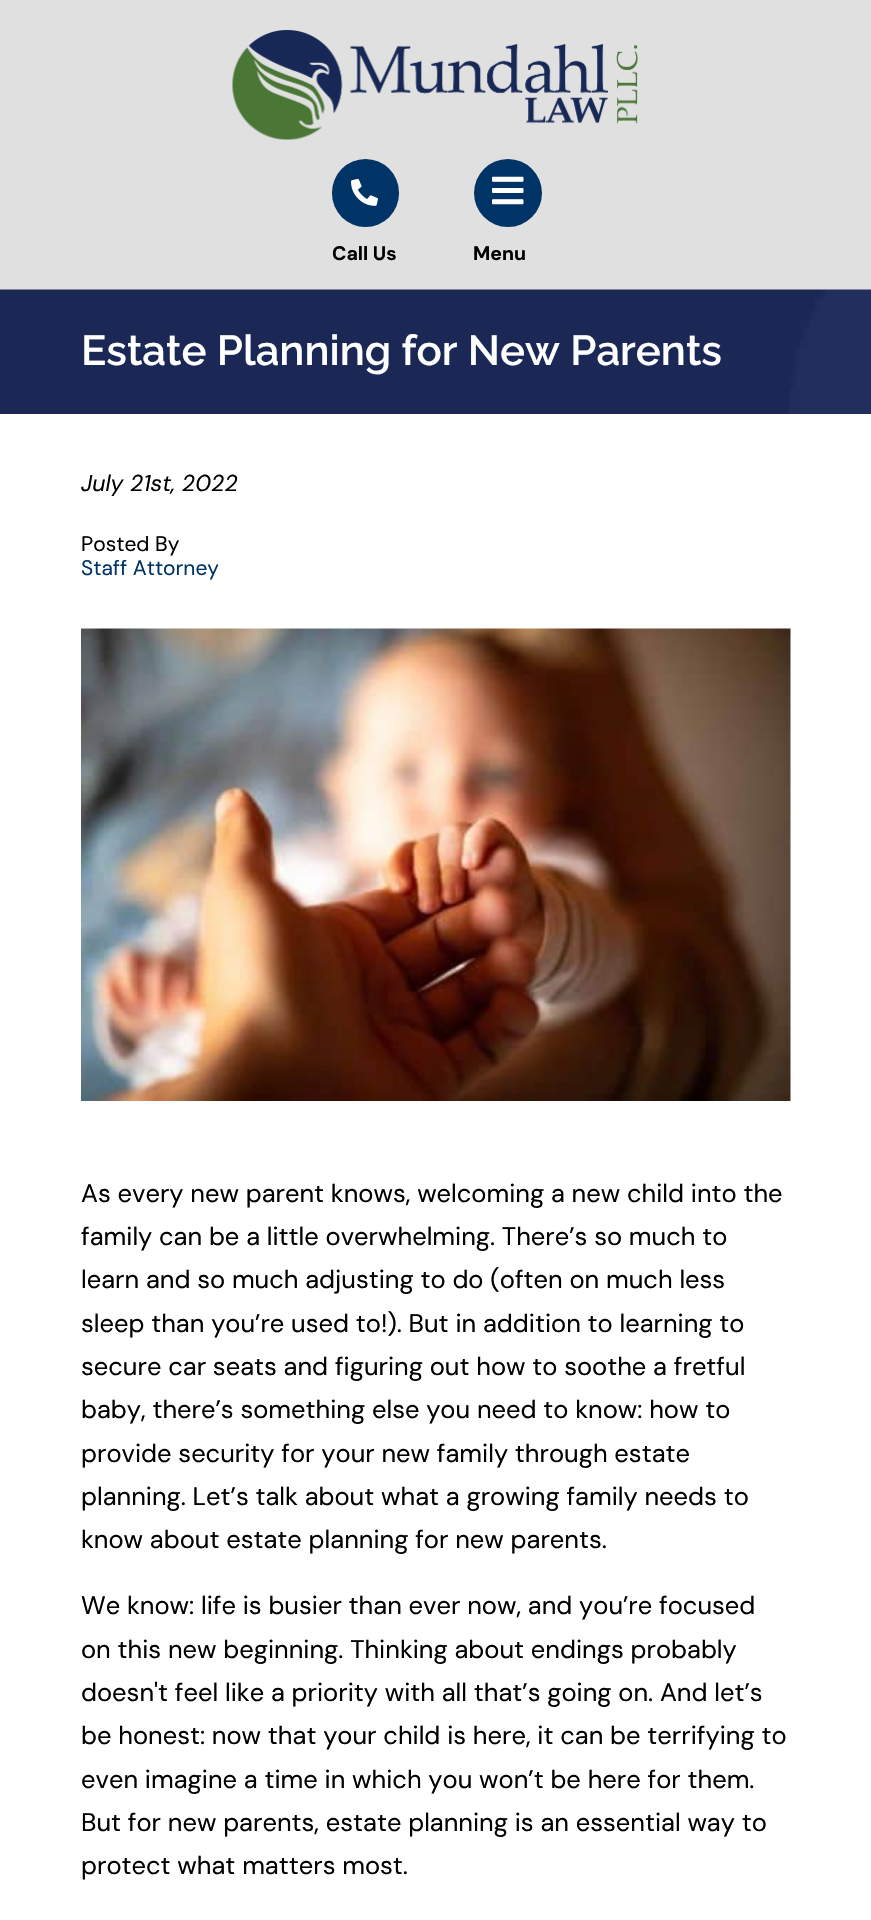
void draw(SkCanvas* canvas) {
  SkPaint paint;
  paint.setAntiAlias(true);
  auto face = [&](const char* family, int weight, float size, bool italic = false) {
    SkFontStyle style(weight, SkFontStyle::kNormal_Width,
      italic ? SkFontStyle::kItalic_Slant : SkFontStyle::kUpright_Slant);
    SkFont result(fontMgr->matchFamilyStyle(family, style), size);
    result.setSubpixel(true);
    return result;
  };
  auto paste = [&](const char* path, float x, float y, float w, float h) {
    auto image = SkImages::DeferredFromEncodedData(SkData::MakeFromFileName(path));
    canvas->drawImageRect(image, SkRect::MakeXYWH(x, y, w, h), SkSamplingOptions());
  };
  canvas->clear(0xffffffff);
  paint.setColor(0xffe0e0e1);
  canvas->drawRect(SkRect::MakeXYWH(0, 0, 871, 290), paint);
  paste("img/1.png", 232, 30, 407, 110);
  paint.setColor(0xff003366);
  canvas->drawRoundRect(SkRect::MakeXYWH(332, 159, 67, 68), 33.5f, 33.5f, paint);
  paste("img/2.png", 351, 178, 27, 28);
  canvas->drawCircle(508, 193, 34, paint);
  paste("img/3.png", 492, 176, 32, 29);
  paste("img/4.png", 0, 289, 871, 125);
  paste("img/5.png", 81, 628, 710, 473);
  auto f0 = face("DM Sans", 700, 19.5f);
  paint.setColor(0xff000000);
  canvas->drawString("Call Us", 332, 260, f0, paint);
  canvas->drawString("Menu", 473, 260, f0, paint);
  auto f1 = face("Raleway", 600, 42);
  paint.setColor(0xffffffff);
  canvas->drawString("Estate Planning for New Parents", 81, 365, f1, paint);
  auto f2 = face("DM Sans", 400, 23, true);
  paint.setColor(0xff000000);
  canvas->drawString("July 21st, 2022", 81, 491, f2, paint);
  auto f3 = face("DM Sans", 400, 21);
  canvas->drawString("Posted By", 81, 551, f3, paint);
  paint.setColor(0xff003366);
  canvas->drawString("Staff Attorney", 81, 575, f3, paint);
  auto f4 = face("DM Sans", 400, 25.5f);
  paint.setColor(0xff000000);
  {
    const struct { const char* s; float x, y; } items[] = {
      {"As every new parent knows, welcoming a new child into the", 81, 1202},
      {"family can be a little overwhelming. There’s so much to", 81, 1245},
      {"learn and so much adjusting to do (often on much less", 81, 1288},
      {"sleep than you’re used to!). But in addition to learning to", 81, 1332},
      {"secure car seats and figuring out how to soothe a fretful", 81, 1375},
      {"baby, there’s something else you need to know: how to", 81, 1418},
      {"provide security for your new family through estate", 81, 1462},
      {"planning. Let’s talk about what a growing family needs to", 81, 1505},
      {"know about estate planning for new parents.", 81, 1548},
      {"We know: life is busier than ever now, and you’re focused", 81, 1614},
      {"on this new beginning. Thinking about endings probably", 81, 1658},
      {"doesn't feel like a priority with all that’s going on. And let’s", 81, 1701},
      {"be honest: now that your child is here, it can be terrifying to", 81, 1744},
      {"even imagine a time in which you won’t be here for them.", 81, 1788},
      {"But for new parents, estate planning is an essential way to", 81, 1831},
      {"protect what matters most.", 81, 1874},
    };
    for (auto [s, x, y] : items) {
      canvas->drawString(s, x, y, f4, paint);
    }
  }
}
